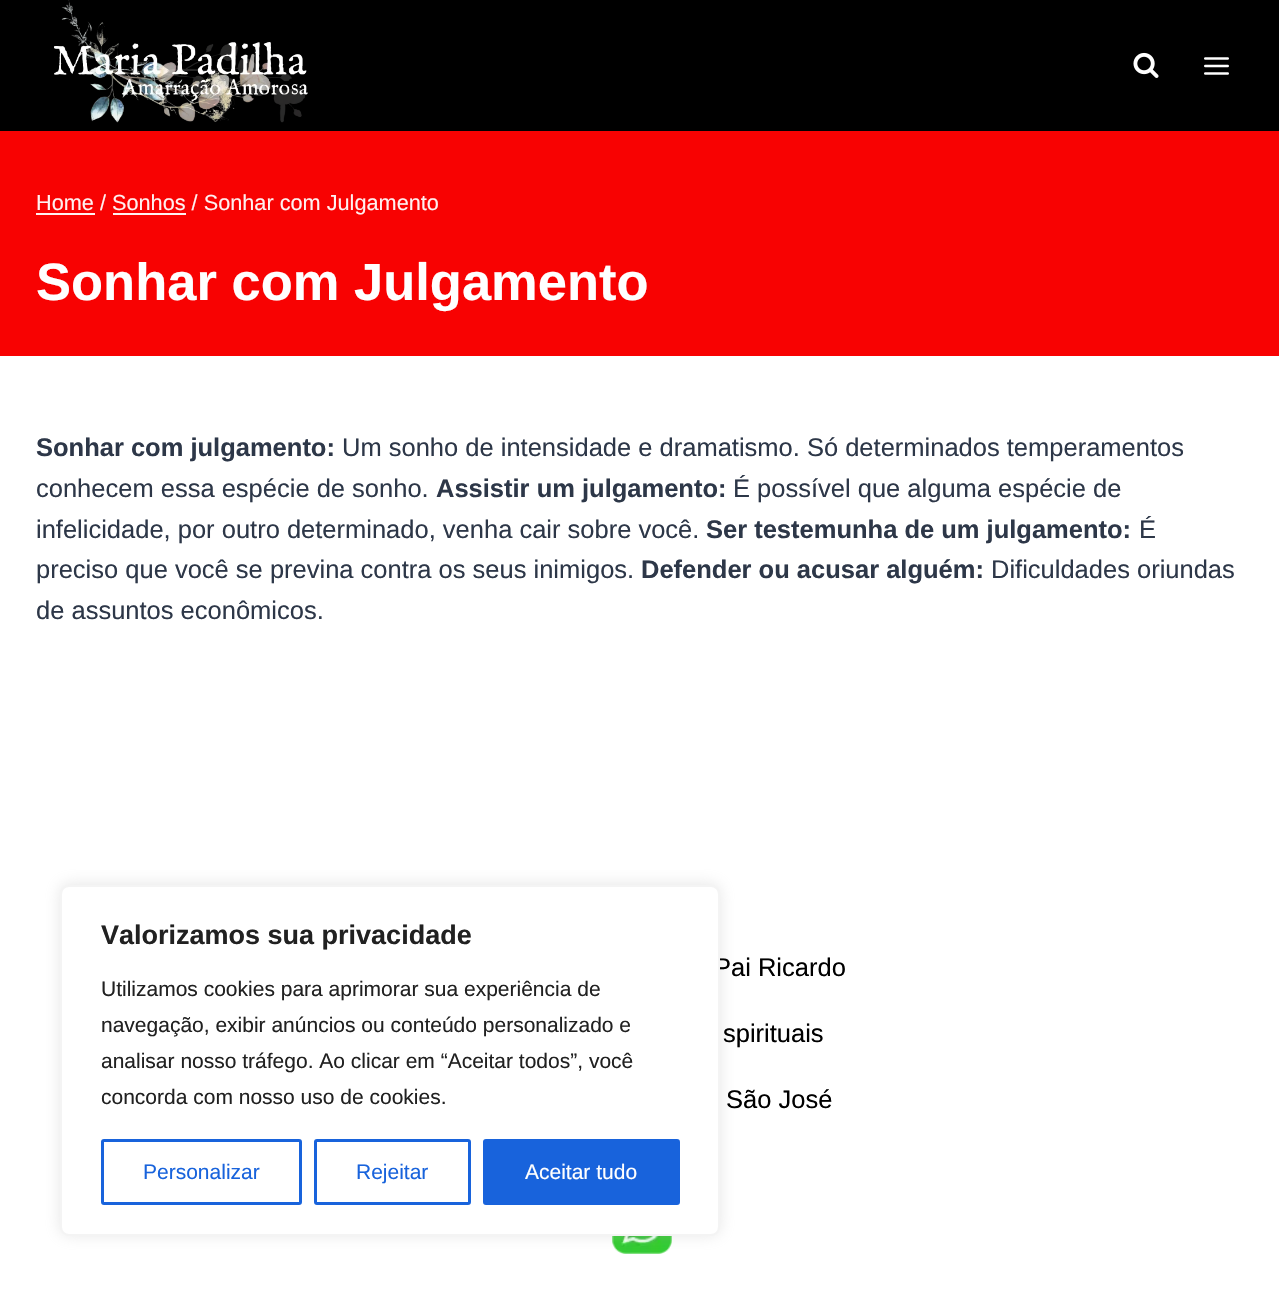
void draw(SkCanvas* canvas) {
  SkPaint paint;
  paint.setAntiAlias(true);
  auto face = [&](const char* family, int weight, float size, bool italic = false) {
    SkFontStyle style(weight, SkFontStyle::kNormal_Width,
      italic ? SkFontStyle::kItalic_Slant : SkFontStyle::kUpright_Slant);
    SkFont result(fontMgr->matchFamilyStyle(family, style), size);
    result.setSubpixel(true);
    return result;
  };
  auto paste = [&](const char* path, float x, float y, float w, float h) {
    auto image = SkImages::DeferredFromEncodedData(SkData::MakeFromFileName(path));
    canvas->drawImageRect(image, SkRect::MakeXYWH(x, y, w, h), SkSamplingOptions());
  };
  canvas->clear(0xffffffff);
  paint.setColor(0xff000000);
  canvas->drawRect(SkRect::MakeXYWH(0, 0, 1279, 131), paint);
  paste("img/1.png", 54, 0, 254, 123);
  paste("img/2.png", 1133, 52, 26, 26);
  paste("img/3.png", 1204, 57, 25, 18);
  {
    const struct { float x, y, w, h; SkColor color; } items[] = {
      {0, 131, 1279, 225, 0xfff80202},
      {36, 213, 59, 2, 0xfffff0f0},
      {113, 213, 73, 2, 0xfffff0f0},
    };
    for (auto [x, y, w, h, color] : items) {
      paint.setColor(color);
      canvas->drawRect(SkRect::MakeXYWH(x, y, w, h), paint);
    }
  }
  paste("img/4.png", 612, 1236, 60, 18);
  paint.setColor(0x4dacabab);
  paint.setMaskFilter(SkMaskFilter::MakeBlur(kNormal_SkBlurStyle, 7.5f));
  canvas->drawRoundRect(SkRect::MakeXYWH(60, 884, 660, 351), 9, 9, paint);
  paint.setMaskFilter(nullptr);
  auto f0 = face("Liberation Sans", 400, 21.7f);
  paint.setColor(0xfffff0f0);
  canvas->drawString("Home / Sonhos / Sonhar com Julgamento", 36, 210, f0, paint);
  auto f1 = face("Liberation Sans", 700, 52.5f);
  paint.setColor(0xffffffff);
  canvas->drawString("Sonhar com Julgamento", 36, 300, f1, paint);
  auto f2 = face("Liberation Sans", 700, 25.5f);
  paint.setColor(0xff2d3748);
  canvas->drawString("Sonhar com julgamento:", 36, 456, f2, paint);
  auto f3 = face("Liberation Sans", 400, 25.5f);
  canvas->drawString("Um sonho de intensidade e dramatismo. Só determinados temperamentos", 342, 456, f3, paint);
  canvas->drawString("conhecem essa espécie de sonho.", 36, 497, f3, paint);
  canvas->drawString("Assistir um julgamento:", 436, 497, f2, paint);
  canvas->drawString("É possível que alguma espécie de", 733, 497, f3, paint);
  canvas->drawString("infelicidade, por outro determinado, venha cair sobre você.", 36, 538, f3, paint);
  canvas->drawString("Ser testemunha de um julgamento:", 706, 538, f2, paint);
  canvas->drawString("É", 1139, 538, f3, paint);
  canvas->drawString("preciso que você se previna contra os seus inimigos.", 36, 578, f3, paint);
  canvas->drawString("Defender ou acusar alguém:", 641, 578, f2, paint);
  canvas->drawString("Dificuldades oriundas", 991, 578, f3, paint);
  canvas->drawString("de assuntos econômicos.", 36, 619, f3, paint);
  paint.setColor(0xff000000);
  {
    const struct { const char* s; float x, y; } items[] = {
      {"Pai Ricardo", 714, 976},
      {"spirituais", 723, 1042},
      {"São José", 726, 1108},
    };
    for (auto [s, x, y] : items) {
      canvas->drawString(s, x, y, f3, paint);
    }
  }
  paint.setColor(0xffffffff);
  canvas->drawRoundRect(SkRect::MakeXYWH(61, 886, 658, 349), 8, 8, paint);
  paint.setStroke(true);
  paint.setStrokeWidth(2);
  paint.setColor(0xfff4f4f4);
  canvas->drawRoundRect(SkRect::MakeXYWH(61, 886, 658, 349), 8, 8, paint);
  auto f4 = face("Liberation Sans", 700, 27);
  paint.setStroke(false);
  paint.setColor(0xff212121);
  canvas->drawString("Valorizamos sua privacidade", 101, 944, f4, paint);
  auto f5 = face("Liberation Sans", 400, 21);
  {
    const struct { const char* s; float x, y; } items[] = {
      {"Utilizamos cookies para aprimorar sua experiência de", 101, 996},
      {"navegação, exibir anúncios ou conteúdo personalizado e", 101, 1032},
      {"analisar nosso tráfego. Ao clicar em “Aceitar todos”, você", 101, 1068},
      {"concorda com nosso uso de cookies.", 101, 1104},
    };
    for (auto [s, x, y] : items) {
      canvas->drawString(s, x, y, f5, paint);
    }
  }
  paint.setStroke(true);
  paint.setStrokeWidth(3);
  paint.setColor(0xff1863dc);
  canvas->drawRoundRect(SkRect::MakeXYWH(102.5f, 1140.5f, 198, 63), 1.5f, 1.5f, paint);
  paint.setStroke(false);
  canvas->drawString("Personalizar", 143, 1179, f5, paint);
  paint.setStroke(true);
  canvas->drawRoundRect(SkRect::MakeXYWH(315.5f, 1140.5f, 154, 63), 1.5f, 1.5f, paint);
  paint.setStroke(false);
  canvas->drawString("Rejeitar", 356, 1179, f5, paint);
  canvas->drawRoundRect(SkRect::MakeXYWH(484.5f, 1140.5f, 194, 63), 1.5f, 1.5f, paint);
  paint.setStroke(true);
  canvas->drawRoundRect(SkRect::MakeXYWH(484.5f, 1140.5f, 194, 63), 1.5f, 1.5f, paint);
  paint.setStroke(false);
  paint.setColor(0xffffffff);
  canvas->drawString("Aceitar tudo", 525, 1179, f5, paint);
}
